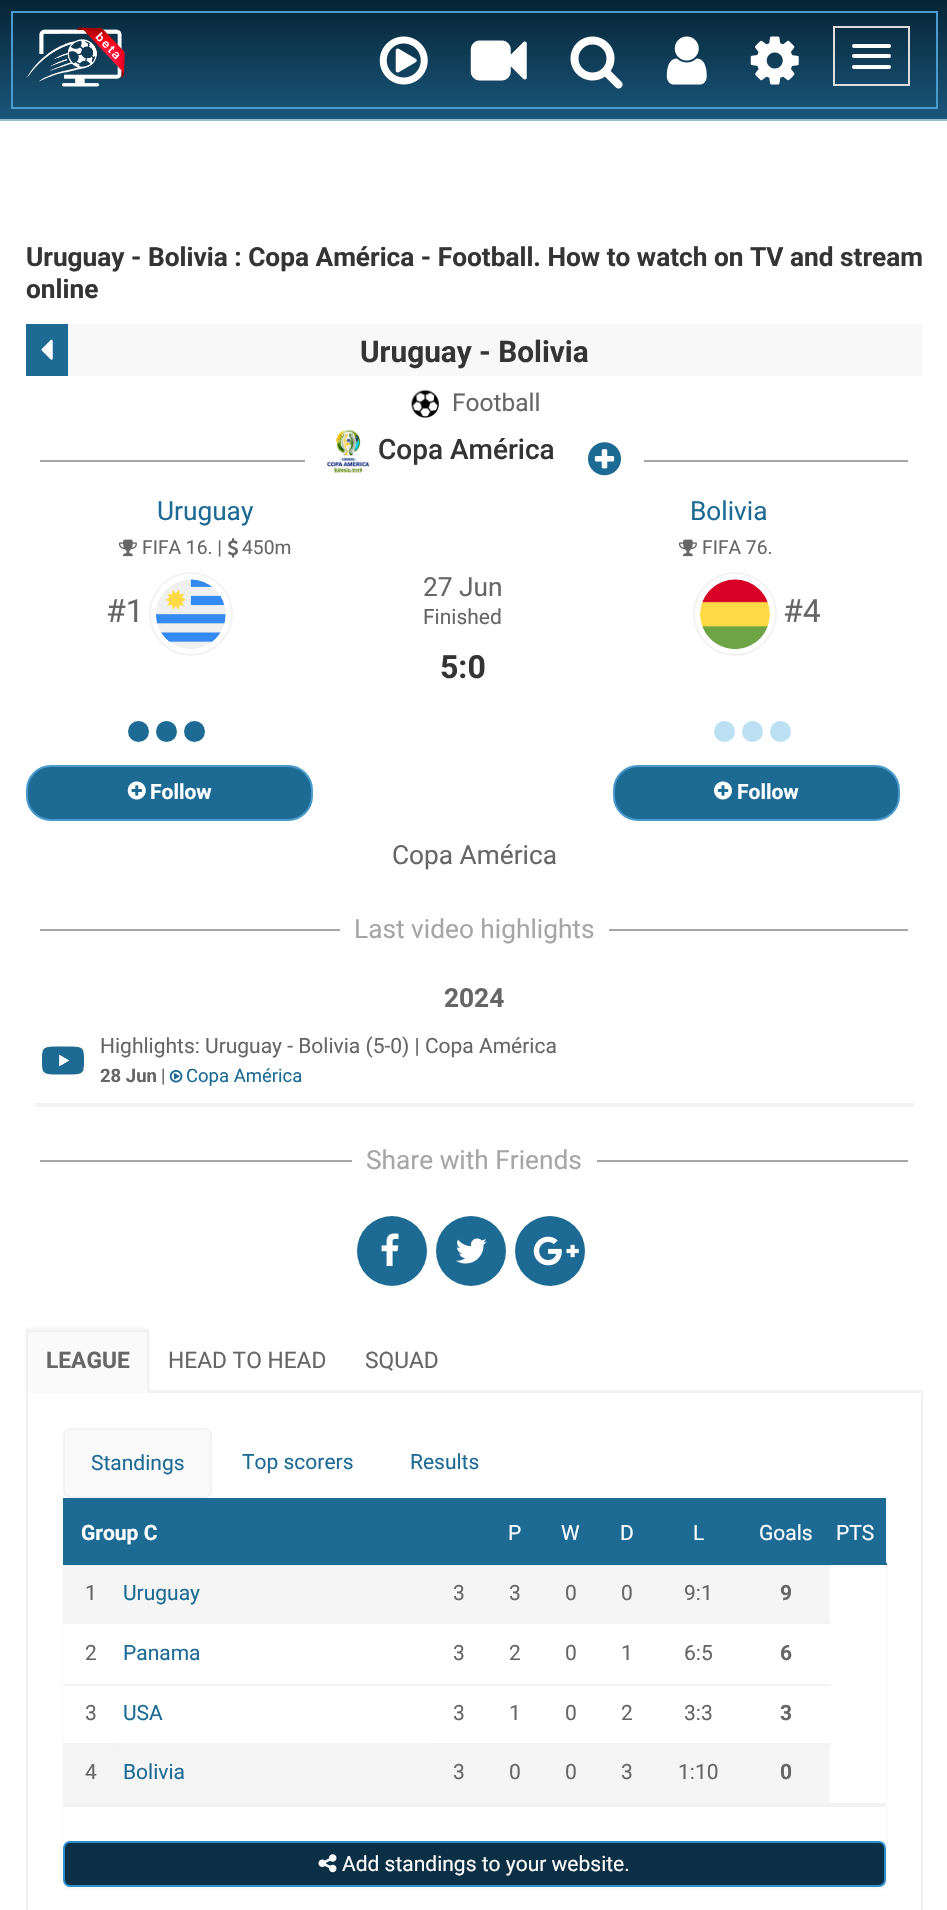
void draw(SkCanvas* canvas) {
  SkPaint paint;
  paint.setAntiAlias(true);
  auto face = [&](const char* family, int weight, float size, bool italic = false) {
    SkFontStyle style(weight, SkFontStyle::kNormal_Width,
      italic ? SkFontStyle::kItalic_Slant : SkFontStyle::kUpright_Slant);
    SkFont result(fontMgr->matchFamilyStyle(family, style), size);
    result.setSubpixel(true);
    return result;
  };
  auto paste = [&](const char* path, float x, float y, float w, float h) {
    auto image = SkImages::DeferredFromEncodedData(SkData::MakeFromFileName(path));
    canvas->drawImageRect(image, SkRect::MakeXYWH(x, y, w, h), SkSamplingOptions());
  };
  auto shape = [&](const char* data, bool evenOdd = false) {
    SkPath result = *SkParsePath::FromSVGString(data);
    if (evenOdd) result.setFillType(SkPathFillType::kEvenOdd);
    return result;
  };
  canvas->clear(0xffffffff);
  paint.setColor(0xff94bcd1);
  canvas->drawRect(SkRect::MakeXYWH(0, 119, 947, 2), paint);
  {
    const SkColor colors[] = {0xff062435, 0xff1a567b};
    const float stops[] = {0, 1};
    const SkPoint ends[] = {{474, 0}, {474, 119}};
    paint.setShader(SkGradientShader::MakeLinear(ends, colors, stops, 2, SkTileMode::kClamp));
    paint.setAlpha(255);
  }
  canvas->drawRect(SkRect::MakeXYWH(0, 0, 947, 119), paint);
  paint.setStroke(true);
  paint.setStrokeWidth(2);
  paint.setShader(nullptr);
  paint.setColor(0xff489bcc);
  canvas->drawRect(SkRect::MakeXYWH(12, 12, 925, 96), paint);
  paste("img/1.png", 26, 27, 99, 60);
  paste("img/2.png", 379, 36, 49, 49);
  paste("img/3.png", 470, 40, 57, 41);
  paste("img/4.png", 570, 36, 53, 53);
  paste("img/5.png", 666, 36, 41, 49);
  paste("img/6.png", 750, 36, 49, 49);
  paint.setColor(0xffdddddd);
  canvas->drawRect(SkRect::MakeXYWH(834, 27, 75, 58), paint);
  paint.setStroke(false);
  paint.setColor(0xffffffff);
  canvas->drawRoundRect(SkRect::MakeXYWH(852, 44, 39, 4), 2, 2, paint);
  canvas->drawRoundRect(SkRect::MakeXYWH(852, 54, 39, 4), 2, 2, paint);
  canvas->drawRoundRect(SkRect::MakeXYWH(852, 65, 39, 4), 2, 2, paint);
  paint.setColor(0xfff8f8f8);
  canvas->drawRect(SkRect::MakeXYWH(68, 324, 854, 52), paint);
  paint.setColor(0xff1d6b95);
  canvas->drawRect(SkRect::MakeXYWH(26, 324, 42, 52), paint);
  paste("img/7.png", 41, 339, 12, 21);
  paste("img/8.png", 410, 389, 30, 29);
  paint.setColor(0xffa6a6a6);
  canvas->drawRect(SkRect::MakeXYWH(40, 460, 265, 2), paint);
  paste("img/9.png", 327, 429, 43, 45);
  paste("img/10.png", 588, 442, 33, 34);
  canvas->drawRect(SkRect::MakeXYWH(644, 460, 264, 2), paint);
  paste("img/11.png", 119, 539, 18, 18);
  paste("img/12.png", 228, 538, 10, 20);
  paste("img/11.png", 679, 539, 18, 18);
  paint.setStroke(true);
  paint.setColor(0xfff3f3f3);
  canvas->drawCircle(191, 614, 41, paint);
  paste("img/13.png", 155, 579, 71, 70);
  canvas->drawCircle(735, 614, 41, paint);
  paste("img/14.png", 700, 579, 70, 71);
  paint.setStroke(false);
  paint.setColor(0xff1d6b95);
  canvas->drawCircle(138.5f, 731.5f, 10.5f, paint);
  canvas->drawCircle(166.5f, 731.5f, 10.5f, paint);
  canvas->drawCircle(194.5f, 731.5f, 10.5f, paint);
  paint.setColor(0xffbddff3);
  canvas->drawCircle(724.5f, 731.5f, 10.5f, paint);
  canvas->drawCircle(752.5f, 731.5f, 10.5f, paint);
  canvas->drawCircle(780.5f, 731.5f, 10.5f, paint);
  paint.setColor(0xff1d6b95);
  canvas->drawRoundRect(SkRect::MakeXYWH(27, 766, 285, 54), 24, 24, paint);
  paint.setStroke(true);
  paint.setColor(0xff489bcc);
  canvas->drawRoundRect(SkRect::MakeXYWH(27, 766, 285, 54), 24, 24, paint);
  paste("img/15.png", 127, 781, 19, 19);
  paint.setStroke(false);
  paint.setColor(0xff1d6b95);
  canvas->drawRoundRect(SkRect::MakeXYWH(614, 766, 285, 54), 24, 24, paint);
  paint.setStroke(true);
  paint.setColor(0xff489bcc);
  canvas->drawRoundRect(SkRect::MakeXYWH(614, 766, 285, 54), 24, 24, paint);
  paste("img/16.png", 714, 781, 18, 19);
  paint.setStroke(false);
  {
    const struct { float x, y, w, h; SkColor color; } items[] = {
      {40, 929, 300, 2, 0xffa6a6a6},
      {609, 929, 299, 2, 0xffa6a6a6},
      {35, 1103, 879, 4, 0xfff3f3f3},
    };
    for (auto [x, y, w, h, color] : items) {
      paint.setColor(color);
      canvas->drawRect(SkRect::MakeXYWH(x, y, w, h), paint);
    }
  }
  paste("img/17.png", 42, 1046, 42, 29);
  paste("img/18.png", 169, 1070, 14, 13);
  paint.setColor(0xffa6a6a6);
  canvas->drawRect(SkRect::MakeXYWH(40, 1160, 312, 2), paint);
  canvas->drawRect(SkRect::MakeXYWH(597, 1160, 311, 2), paint);
  paint.setColor(0xff1d6b95);
  canvas->drawCircle(392, 1251, 35, paint);
  paste("img/19.png", 381, 1233, 18, 33);
  canvas->drawCircle(471, 1251, 35, paint);
  paste("img/20.png", 456, 1238, 31, 26);
  canvas->drawCircle(550, 1251, 35, paint);
  paste("img/21.png", 533, 1236, 46, 30);
  paint.setColor(0xfff5f5f5);
  canvas->drawRect(SkRect::MakeXYWH(149, 1390, 773, 1), paint);
  paint.setColor(0xfff0f0f0);
  canvas->drawRect(SkRect::MakeXYWH(149, 1391, 773, 2), paint);
  paint.setColor(0x0a000000);
  paint.setMaskFilter(SkMaskFilter::MakeBlur(kNormal_SkBlurStyle, 1));
  canvas->drawRect(SkRect::MakeXYWH(26, 1328, 123, 63), paint);
  paint.setMaskFilter(nullptr);
  paint.setColor(0xfffafafa);
  canvas->drawRect(SkRect::MakeXYWH(26, 1332, 123, 61), paint);
  paint.setColor(0xfff0f0f0);
  canvas->drawRect(SkRect::MakeXYWH(26, 1330, 123, 2), paint);
  canvas->drawPath(shape("M149 1330V1393L147 1391V1332Z"), paint);
  canvas->drawPath(shape("M26 1393V1330L28 1332V1391Z"), paint);
  canvas->drawRect(SkRect::MakeXYWH(921, 1393, 2, 517), paint);
  canvas->drawRect(SkRect::MakeXYWH(26, 1393, 2, 517), paint);
  paint.setColor(0xfffafafa);
  canvas->drawRoundRect(SkRect::MakeXYWH(64, 1429, 147, 68), 6, 6, paint);
  paint.setStroke(true);
  paint.setColor(0xfff3f3f3);
  canvas->drawRoundRect(SkRect::MakeXYWH(64, 1429, 147, 68), 6, 6, paint);
  paint.setStroke(false);
  paint.setColor(0x0a000000);
  paint.setMaskFilter(SkMaskFilter::MakeBlur(kNormal_SkBlurStyle, 1));
  canvas->drawRect(SkRect::MakeXYWH(63, 1500, 823, 388), paint);
  paint.setMaskFilter(nullptr);
  {
    const struct { float x, y, w, h; SkColor color; } items[] = {
      {63, 1565, 823, 322, 0xffffffff},
      {63, 1803, 823, 4, 0xfff3f3f3},
      {63, 1498, 424, 67, 0xff1d6b95},
      {487, 1498, 399, 65, 0xff1d6b95},
      {487, 1563, 400, 2, 0xff1d6b95},
      {63, 1565, 56, 57, 0xfff5f5f5},
      {63, 1622, 58, 2, 0xfff3f3f3},
      {119, 1565, 312, 59, 0xfff5f5f5},
      {431, 1565, 399, 57, 0xfff5f5f5},
      {431, 1622, 400, 2, 0xfff3f3f3},
      {63, 1684, 768, 2, 0xfff3f3f3},
      {63, 1745, 56, 58, 0xfff5f5f5},
      {63, 1743, 58, 2, 0xfff3f3f3},
      {119, 1743, 312, 60, 0xfff5f5f5},
      {431, 1745, 399, 58, 0xfff5f5f5},
      {431, 1743, 400, 2, 0xfff3f3f3},
    };
    for (auto [x, y, w, h, color] : items) {
      paint.setColor(color);
      canvas->drawRect(SkRect::MakeXYWH(x, y, w, h), paint);
    }
  }
  paint.setColor(0xff0b2f44);
  canvas->drawRoundRect(SkRect::MakeXYWH(64, 1842, 821, 44), 6, 6, paint);
  paint.setStroke(true);
  paint.setColor(0xff2c8fcc);
  canvas->drawRoundRect(SkRect::MakeXYWH(64, 1842, 821, 44), 6, 6, paint);
  paste("img/22.png", 318, 1854, 19, 19);
  auto f0 = face("Roboto", 700, 26.25f);
  paint.setStroke(false);
  paint.setColor(0xff343434);
  canvas->drawString("Uruguay - Bolivia : Copa América - Football. How to watch on TV and stream", 26, 266, f0, paint);
  canvas->drawString("online", 26, 298, f0, paint);
  auto f1 = face("Roboto", 700, 29.75f);
  canvas->drawString("Uruguay - Bolivia", 360, 362, f1, paint);
  auto f2 = face("Roboto", 400, 24.5f);
  paint.setColor(0xff666666);
  canvas->drawString("Football", 452, 411, f2, paint);
  auto f3 = face("Roboto", 500, 28);
  paint.setColor(0xff343434);
  canvas->drawString("Copa América", 378, 459, f3, paint);
  auto f4 = face("Roboto", 400, 26.25f);
  paint.setColor(0xff1d6b95);
  canvas->drawString("Uruguay", 157, 520, f4, paint);
  canvas->drawString("Bolivia", 690, 520, f4, paint);
  auto f5 = face("Roboto", 400, 19.25f);
  paint.setColor(0xff666666);
  {
    const struct { const char* s; float x, y; } items[] = {
      {"FIFA 16. |", 142, 554},
      {"450m", 242, 554},
      {"FIFA 76.", 702, 554},
    };
    for (auto [s, x, y] : items) {
      canvas->drawString(s, x, y, f5, paint);
    }
  }
  auto f6 = face("Roboto", 400, 32);
  canvas->drawString("#1", 106, 622, f6, paint);
  canvas->drawString("27 Jun", 423, 596, f4, paint);
  auto f7 = face("Roboto", 400, 21);
  canvas->drawString("Finished", 423, 624, f7, paint);
  auto f8 = face("Roboto", 700, 32);
  paint.setColor(0xff343434);
  canvas->drawString("5:0", 440, 678, f8, paint);
  paint.setColor(0xff666666);
  canvas->drawString("#4", 783, 622, f6, paint);
  auto f9 = face("Roboto", 700, 21);
  paint.setColor(0xffffffff);
  canvas->drawString("Follow", 150, 799, f9, paint);
  canvas->drawString("Follow", 737, 799, f9, paint);
  paint.setColor(0xff666666);
  canvas->drawString("Copa América", 392, 864, f4, paint);
  paint.setColor(0xffa6a6a6);
  canvas->drawString("Last video highlights", 354, 938, f4, paint);
  paint.setColor(0xff666666);
  canvas->drawString("2024", 444, 1007, f0, paint);
  canvas->drawString("Highlights: Uruguay - Bolivia (5-0) | Copa América", 100, 1053, f7, paint);
  auto f10 = face("Roboto", 700, 18.5f);
  canvas->drawString("28 Jun", 100, 1082, f10, paint);
  auto f11 = face("Roboto", 400, 18.5f);
  canvas->drawString("|", 161, 1082, f11, paint);
  paint.setColor(0xff1d6b95);
  canvas->drawString("Copa América", 186, 1082, f11, paint);
  paint.setColor(0xffa6a6a6);
  canvas->drawString("Share with Friends", 366, 1169, f4, paint);
  auto f12 = face("Roboto", 700, 22.75f);
  paint.setColor(0xff666666);
  canvas->drawString("LEAGUE", 46, 1368, f12, paint);
  auto f13 = face("Roboto", 400, 22.75f);
  canvas->drawString("HEAD TO HEAD", 168, 1368, f13, paint);
  canvas->drawString("SQUAD", 365, 1368, f13, paint);
  paint.setColor(0xff1d6b95);
  {
    const struct { const char* s; float x, y; } items[] = {
      {"Standings", 91, 1470},
      {"Top scorers", 242, 1469},
      {"Results", 410, 1469},
    };
    for (auto [s, x, y] : items) {
      canvas->drawString(s, x, y, f7, paint);
    }
  }
  paint.setColor(0xffffffff);
  canvas->drawString("Group C", 81, 1540, f9, paint);
  {
    const struct { const char* s; float x, y; } items[] = {
      {"P", 508, 1540},
      {"W", 561, 1540},
      {"D", 620, 1540},
      {"L", 693, 1540},
      {"Goals", 759, 1540},
      {"PTS", 836, 1540},
    };
    for (auto [s, x, y] : items) {
      canvas->drawString(s, x, y, f7, paint);
    }
  }
  paint.setColor(0xff666666);
  canvas->drawString("1", 85, 1600, f7, paint);
  paint.setColor(0xff1d6b95);
  canvas->drawString("Uruguay", 123, 1600, f7, paint);
  paint.setColor(0xff666666);
  {
    const struct { const char* s; float x, y; } items[] = {
      {"3", 453, 1600},
      {"3", 509, 1600},
      {"0", 565, 1600},
      {"0", 621, 1600},
      {"9:1", 684, 1600},
    };
    for (auto [s, x, y] : items) {
      canvas->drawString(s, x, y, f7, paint);
    }
  }
  canvas->drawString("9", 780, 1600, f9, paint);
  canvas->drawString("2", 85, 1660, f7, paint);
  paint.setColor(0xff1d6b95);
  canvas->drawString("Panama", 123, 1660, f7, paint);
  paint.setColor(0xff666666);
  {
    const struct { const char* s; float x, y; } items[] = {
      {"3", 453, 1660},
      {"2", 509, 1660},
      {"0", 565, 1660},
      {"1", 621, 1660},
      {"6:5", 684, 1660},
    };
    for (auto [s, x, y] : items) {
      canvas->drawString(s, x, y, f7, paint);
    }
  }
  canvas->drawString("6", 780, 1660, f9, paint);
  canvas->drawString("3", 85, 1720, f7, paint);
  paint.setColor(0xff1d6b95);
  canvas->drawString("USA", 123, 1720, f7, paint);
  paint.setColor(0xff666666);
  {
    const struct { const char* s; float x, y; } items[] = {
      {"3", 453, 1720},
      {"1", 509, 1720},
      {"0", 565, 1720},
      {"2", 621, 1720},
      {"3:3", 684, 1720},
    };
    for (auto [s, x, y] : items) {
      canvas->drawString(s, x, y, f7, paint);
    }
  }
  canvas->drawString("3", 780, 1720, f9, paint);
  canvas->drawString("4", 85, 1779, f7, paint);
  paint.setColor(0xff1d6b95);
  canvas->drawString("Bolivia", 123, 1779, f7, paint);
  paint.setColor(0xff666666);
  {
    const struct { const char* s; float x, y; } items[] = {
      {"3", 453, 1779},
      {"0", 509, 1779},
      {"0", 565, 1779},
      {"3", 621, 1779},
      {"1:10", 678, 1779},
    };
    for (auto [s, x, y] : items) {
      canvas->drawString(s, x, y, f7, paint);
    }
  }
  canvas->drawString("0", 780, 1779, f9, paint);
  paint.setColor(0xffffffff);
  canvas->drawString("Add standings to your website.", 342, 1871, f7, paint);
}
